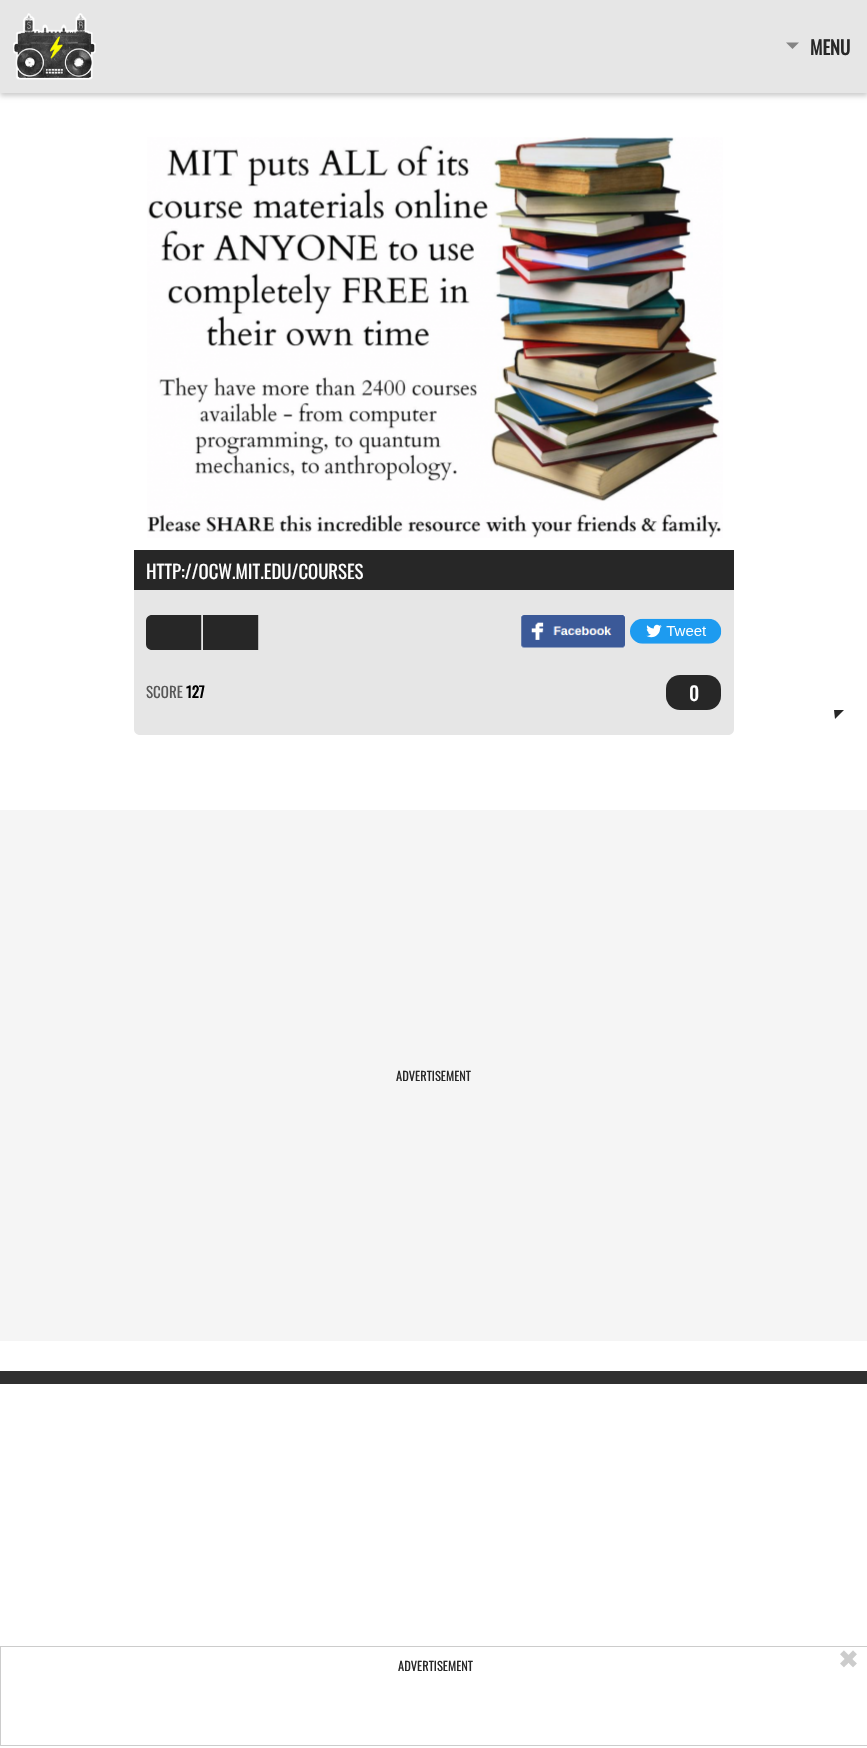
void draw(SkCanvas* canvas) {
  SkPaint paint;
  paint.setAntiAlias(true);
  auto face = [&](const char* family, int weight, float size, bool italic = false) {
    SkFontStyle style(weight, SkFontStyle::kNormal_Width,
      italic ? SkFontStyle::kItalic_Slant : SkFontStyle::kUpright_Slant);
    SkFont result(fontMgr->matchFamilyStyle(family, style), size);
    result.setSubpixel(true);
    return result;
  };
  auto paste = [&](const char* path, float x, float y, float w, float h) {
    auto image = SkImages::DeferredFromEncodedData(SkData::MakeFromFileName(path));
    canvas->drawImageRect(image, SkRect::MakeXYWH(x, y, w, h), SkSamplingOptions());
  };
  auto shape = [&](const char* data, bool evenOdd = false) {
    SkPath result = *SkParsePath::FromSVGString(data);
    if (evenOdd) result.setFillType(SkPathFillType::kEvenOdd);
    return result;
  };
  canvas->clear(0xffffffff);
  paint.setColor(0x33000000);
  paint.setMaskFilter(SkMaskFilter::MakeBlur(kNormal_SkBlurStyle, 2.5f));
  canvas->drawRect(SkRect::MakeXYWH(0, 4, 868, 92), paint);
  paint.setMaskFilter(nullptr);
  paint.setColor(0xffe6e6e6);
  canvas->drawRect(SkRect::MakeXYWH(0, 0, 867, 93), paint);
  paste("img/1.png", 13, 13, 83, 67);
  paint.setColor(0xff848484);
  canvas->drawPath(shape("M786 42.5H799L792.5 49Z"), paint);
  paste("img/2.png", 147, 137, 576, 401);
  paint.setColor(0xffe6e6e6);
  canvas->drawPath(shape("M134 550H734V729C734 732.5 731.5 735 728 735H140C136.5 735 134 732.5 134 729Z"), paint);
  paint.setColor(0xff272727);
  canvas->drawRect(SkRect::MakeXYWH(134, 550, 600, 40), paint);
  canvas->drawPath(shape("M152 615H201V650H152C148.5 650 146 647.5 146 644V621C146 617.5 148.5 615 152 615Z"), paint);
  {
    const struct { float x, y, w, h; SkColor color; } items[] = {
      {203, 615, 55, 35, 0xff272727},
      {258, 615, 1, 35, 0xffbdbdbd},
      {201, 615, 1, 35, 0xffbdbdbd},
    };
    for (auto [x, y, w, h, color] : items) {
      paint.setColor(color);
      canvas->drawRect(SkRect::MakeXYWH(x, y, w, h), paint);
    }
  }
  paste("img/3.png", 521, 615, 104, 33);
  paste("img/4.png", 630, 618, 92, 26);
  paint.setColor(0xff272727);
  canvas->drawRoundRect(SkRect::MakeXYWH(666, 675, 55, 35), 14, 14, paint);
  canvas->drawPath(shape("M834 710H844L835 719Z"), paint);
  paint.setColor(0xfff5f5f5);
  canvas->drawRect(SkRect::MakeXYWH(0, 810, 867, 531), paint);
  paint.setColor(0xff303030);
  canvas->drawRect(SkRect::MakeXYWH(0, 1371, 867, 13), paint);
  paint.setStroke(true);
  paint.setStrokeWidth(1);
  paint.setColor(0xffcccccc);
  canvas->drawRect(SkRect::MakeXYWH(0.5f, 1646.5f, 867, 99), paint);
  auto f0 = face("Oswald", 700, 18.75f);
  paint.setStroke(false);
  paint.setColor(0xff272727);
  canvas->drawString("MENU", 810, 55, f0, paint);
  auto f1 = face("Oswald", 400, 18.75f);
  paint.setColor(0xffffffff);
  canvas->drawString("HTTP://OCW.MIT.EDU/COURSES", 146, 579, f1, paint);
  auto f2 = face("Oswald", 400, 15);
  paint.setColor(0xff575757);
  canvas->drawString("SCORE", 146, 698, f2, paint);
  auto f3 = face("Oswald", 700, 15);
  paint.setColor(0xff000000);
  canvas->drawString("127", 186, 698, f3, paint);
  paint.setColor(0xffffffff);
  canvas->drawString("0", 689, 701, f0, paint);
  auto f4 = face("Oswald", 400, 12.5f);
  paint.setColor(0xff272727);
  canvas->drawString("ADVERTISEMENT", 396, 1081, f4, paint);
  canvas->drawString("ADVERTISEMENT", 398, 1671, f4, paint);
  auto f5 = face("DejaVu Sans", 400, 25);
  paint.setColor(0xffcccccc);
  canvas->drawString("✖", 838, 1668, f5, paint);
}
